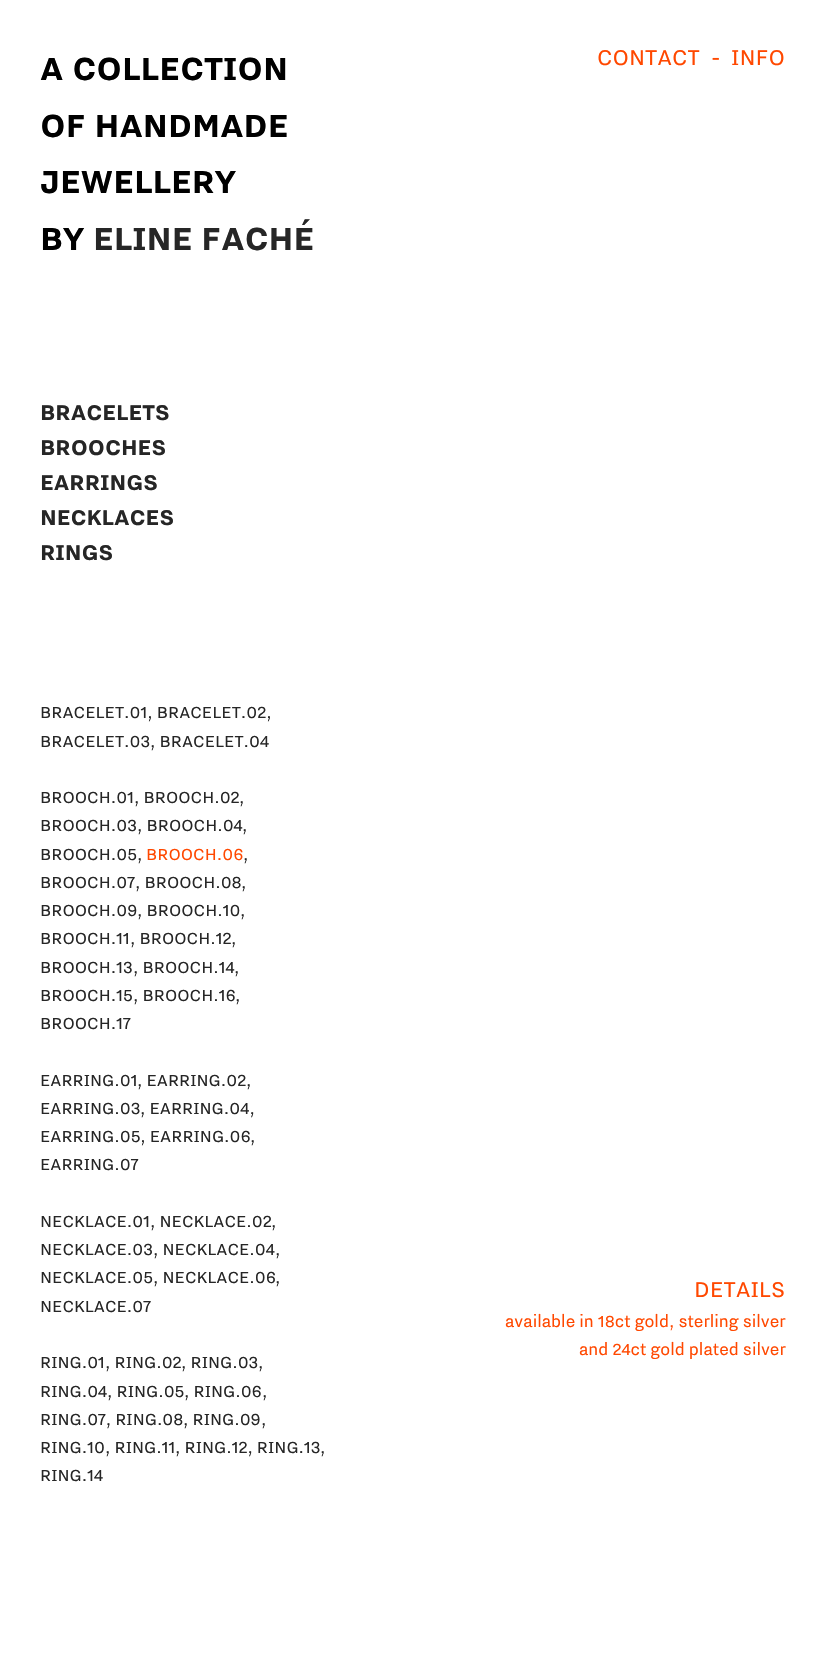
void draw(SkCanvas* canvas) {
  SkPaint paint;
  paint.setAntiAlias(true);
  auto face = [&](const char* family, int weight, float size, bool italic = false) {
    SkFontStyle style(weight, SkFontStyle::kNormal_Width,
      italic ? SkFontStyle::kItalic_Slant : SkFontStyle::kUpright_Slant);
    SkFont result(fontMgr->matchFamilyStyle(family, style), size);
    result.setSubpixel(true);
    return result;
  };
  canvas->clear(0xffffffff);
  auto f0 = face("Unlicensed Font", 700, 40.5f);
  paint.setColor(0xff000000);
  {
    const struct { const char* s; float x, y; } items[] = {
      {"A COLLECTION", 40, 80},
      {"OF HANDMADE", 40, 137},
      {"JEWELLERY", 40, 193},
      {"BY", 40, 250},
    };
    for (auto [s, x, y] : items) {
      canvas->drawString(s, x, y, f0, paint);
    }
  }
  paint.setColor(0xff262626);
  canvas->drawString("ELINE FACHÉ", 93, 250, f0, paint);
  auto f1 = face("Unlicensed Font", 700, 27);
  {
    const struct { const char* s; float x, y; } items[] = {
      {"BRACELETS", 40, 420},
      {"BROOCHES", 40, 455},
      {"EARRINGS", 40, 490},
      {"NECKLACES", 40, 525},
      {"RINGS", 40, 560},
    };
    for (auto [s, x, y] : items) {
      canvas->drawString(s, x, y, f1, paint);
    }
  }
  auto f2 = face("Unlicensed Font", 400, 20.25f);
  {
    const struct { const char* s; float x, y; } items[] = {
      {"BRACELET.01, BRACELET.02,", 40, 718},
      {"BRACELET.03", 40, 747},
      {", BRACELET.04", 150, 747},
      {"BROOCH.01", 40, 803},
      {", BROOCH.02", 134, 803},
      {",", 239, 803},
      {"BROOCH.03", 40, 831},
      {", BROOCH.04", 137, 831},
      {",", 242, 831},
      {"BROOCH.05", 40, 860},
      {",", 137, 860},
    };
    for (auto [s, x, y] : items) {
      canvas->drawString(s, x, y, f2, paint);
    }
  }
  paint.setColor(0xffff4800);
  canvas->drawString("BROOCH.06", 146, 860, f2, paint);
  paint.setColor(0xff262626);
  {
    const struct { const char* s; float x, y; } items[] = {
      {",", 243, 860},
      {"BROOCH.07", 40, 888},
      {", BROOCH.08", 135, 888},
      {",", 241, 888},
      {"BROOCH.09", 40, 916},
      {", BROOCH.10", 137, 916},
      {",", 240, 916},
      {"BROOCH.11", 40, 944},
      {", BROOCH.12", 130, 944},
      {",", 231, 944},
      {"BROOCH.13", 40, 973},
      {", BROOCH.14", 133, 973},
      {",", 234, 973},
      {"BROOCH.15", 40, 1001},
      {", BROOCH.16", 133, 1001},
      {",", 235, 1001},
      {"BROOCH.17", 40, 1029},
      {"EARRING.01", 40, 1086},
      {", EARRING.02", 137, 1086},
      {",", 246, 1086},
      {"EARRING.03", 40, 1114},
      {", EARRING.04,", 140, 1114},
      {"EARRING.05, EARRING.06", 40, 1142},
      {",", 250, 1142},
      {"EARRING.07", 40, 1170},
      {"NECKLACE.01", 40, 1227},
      {", NECKLACE.02", 150, 1227},
      {",", 271, 1227},
      {"NECKLACE.03", 40, 1255},
      {", NECKLACE.04,", 153, 1255},
      {"NECKLACE.05", 40, 1283},
      {", NECKLACE.06", 153, 1283},
      {",", 275, 1283},
      {"NECKLACE.07", 40, 1312},
      {"RING.01", 40, 1368},
      {", RING.02", 105, 1368},
      {", RING.03", 181, 1368},
      {",", 258, 1368},
      {"RING.04", 40, 1397},
      {", RING.05", 107, 1397},
      {", RING.06", 184, 1397},
      {",", 262, 1397},
      {"RING.07, RING.08", 40, 1425},
      {", RING.09", 183, 1425},
      {",", 261, 1425},
      {"RING.10", 40, 1453},
      {", RING.11", 105, 1453},
      {", RING.12, RING.13", 175, 1453},
      {",", 320, 1453},
      {"RING.14", 40, 1481},
    };
    for (auto [s, x, y] : items) {
      canvas->drawString(s, x, y, f2, paint);
    }
  }
  auto f3 = face("Unlicensed Font", 400, 27);
  paint.setColor(0xffff4800);
  {
    const struct { const char* s; float x, y; } items[] = {
      {"CONTACT", 597, 65},
      {"-", 711, 65},
      {"INFO", 731, 65},
      {"DETAILS", 694, 1297},
    };
    for (auto [s, x, y] : items) {
      canvas->drawString(s, x, y, f3, paint);
    }
  }
  canvas->drawString("available in 18ct gold, sterling silver", 505, 1327, f2, paint);
  canvas->drawString("and 24ct gold plated silver", 579, 1355, f2, paint);
}
